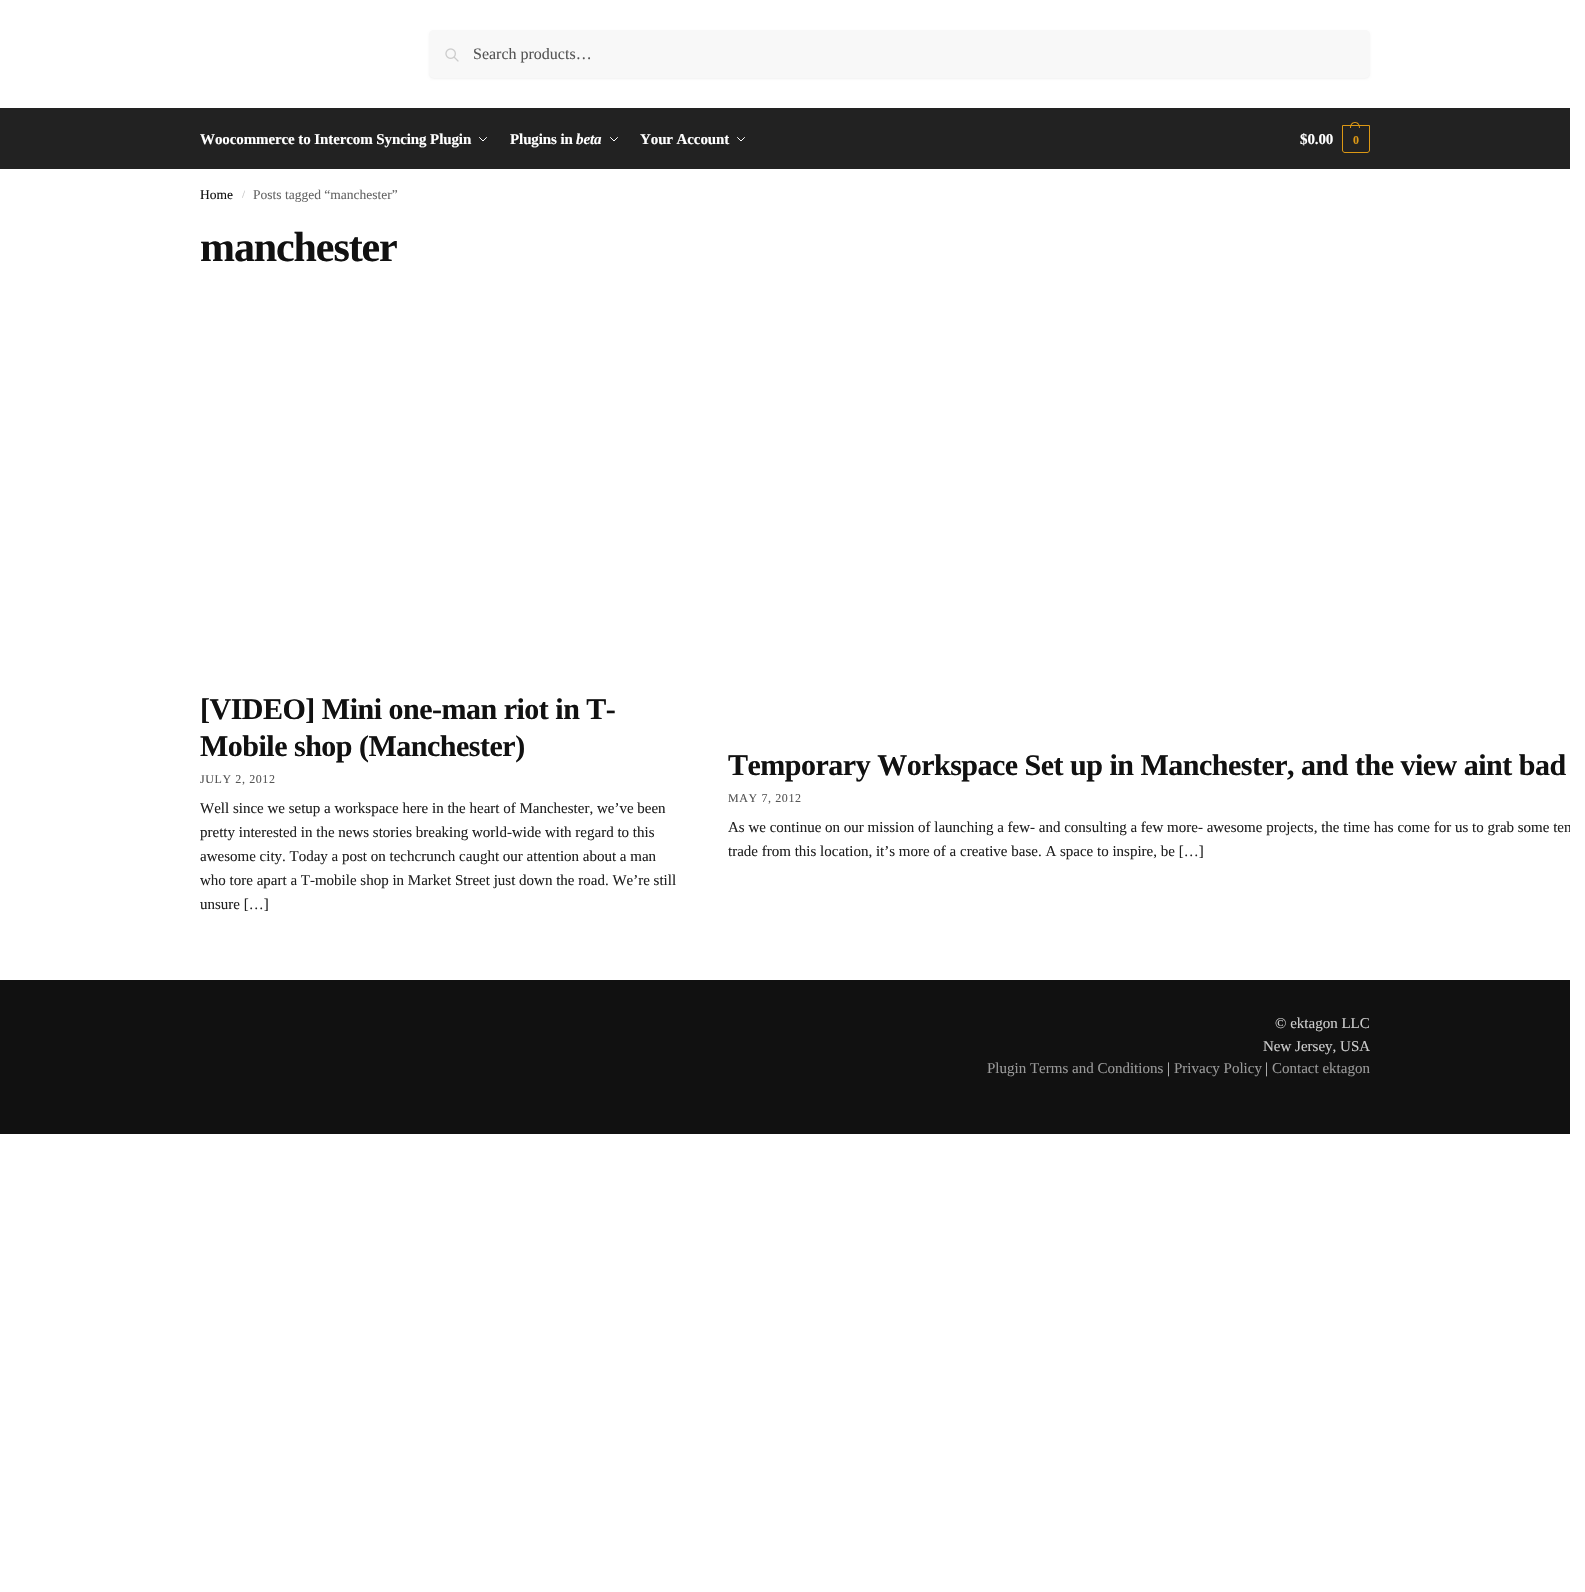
void draw(SkCanvas* canvas) {
  SkPaint paint;
  paint.setAntiAlias(true);
  auto face = [&](const char* family, int weight, float size, bool italic = false) {
    SkFontStyle style(weight, SkFontStyle::kNormal_Width,
      italic ? SkFontStyle::kItalic_Slant : SkFontStyle::kUpright_Slant);
    SkFont result(fontMgr->matchFamilyStyle(family, style), size);
    result.setSubpixel(true);
    return result;
  };
  auto writeSpaced = [&](const char* s, float x, float y, const SkFont& font, const SkPaint& ink, float letter, float word) {
    std::vector<SkGlyphID> glyphs(font.countText(s, strlen(s), SkTextEncoding::kUTF8));
    std::vector<float> xs(glyphs.size());
    font.textToGlyphs(s, strlen(s), SkTextEncoding::kUTF8, glyphs);
    font.getXPos(glyphs, xs, x);
    float extra = 0;
    for (size_t i = 0; i < glyphs.size(); i++) {
      xs[i] += extra;
      extra += letter + word * (glyphs[i] == font.unicharToGlyph(' '));
    }
    canvas->drawTextBlob(SkTextBlob::MakeFromPosHGlyphs(glyphs, xs, y, font), 0, 0, ink);
  };
  auto paste = [&](const char* path, float x, float y, float w, float h) {
    auto image = SkImages::DeferredFromEncodedData(SkData::MakeFromFileName(path));
    canvas->drawImageRect(image, SkRect::MakeXYWH(x, y, w, h), SkSamplingOptions());
  };
  auto shape = [&](const char* data, bool evenOdd = false) {
    SkPath result = *SkParsePath::FromSVGString(data);
    if (evenOdd) result.setFillType(SkPathFillType::kEvenOdd);
    return result;
  };
  canvas->clear(0xffffffff);
  paint.setColor(0x0d000000);
  paint.setMaskFilter(SkMaskFilter::MakeBlur(kNormal_SkBlurStyle, 1));
  canvas->drawRoundRect(SkRect::MakeXYWH(429, 31, 941, 48), 5, 5, paint);
  paint.setMaskFilter(nullptr);
  paint.setColor(0xfff8f8f8);
  canvas->drawRoundRect(SkRect::MakeXYWH(429, 30, 941, 48), 5, 5, paint);
  paste("img/1.png", 445, 48, 14, 14);
  paint.setColor(0xff222222);
  canvas->drawRect(SkRect::MakeXYWH(0, 108, 1570, 61), paint);
  paint.setStroke(true);
  paint.setStrokeWidth(1);
  paint.setStrokeCap(SkPaint::kRound_Cap);
  paint.setStrokeJoin(SkPaint::kRound_Join);
  paint.setColor(0xffffffff);
  canvas->drawPath(shape("M486.5 137.5L483 141L479.5 137.5"), paint);
  canvas->drawPath(shape("M617.5 137.5L614 141L610.5 137.5"), paint);
  canvas->drawPath(shape("M744.5 137.5L741 141L737.5 137.5"), paint);
  paint.setStrokeCap(SkPaint::kButt_Cap);
  paint.setStrokeJoin(SkPaint::kMiter_Join);
  paint.setColor(0xffdc9814);
  canvas->drawPath(shape("M1342.5 125.5H1369.5V150C1369.5 151.5 1368.5 152.5 1367 152.5H1345C1343.5 152.5 1342.5 151.5 1342.5 150Z"), paint);
  paint.setStroke(false);
  canvas->drawPath(shape("M1355 122C1358.5 122 1360 125 1360 128H1350C1350 125 1351.5 122 1355 122ZM1355 123C1358 123 1359 125.5 1359 128H1351C1351 125.5 1352 123 1355 123Z", true), paint);
  paint.setColor(0xff111111);
  canvas->drawRect(SkRect::MakeXYWH(0, 980, 1570, 154), paint);
  auto f0 = face("Liberation Serif", 400, 16);
  paint.setColor(0xff555555);
  canvas->drawString("Search products…", 473, 59, f0, paint);
  auto f1 = face("Liberation Serif", 700, 15);
  paint.setColor(0xffffffff);
  writeSpaced("Woocommerce to Intercom Syncing Plugin", 200, 144, f1, paint, -0.1f, 0);
  writeSpaced("Plugins in", 510, 144, f1, paint, -0.1f, 0);
  auto f2 = face("Liberation Serif", 700, 15, true);
  writeSpaced("beta", 576, 144, f2, paint, -0.1f, 0);
  writeSpaced("Your Account", 640, 144, f1, paint, -0.1f, 0);
  writeSpaced("$0.00", 1300, 144, f1, paint, -0.1f, 0);
  auto f3 = face("Liberation Serif", 700, 12);
  paint.setColor(0xffdc9814);
  writeSpaced("0", 1353, 144, f3, paint, -1, 0);
  auto f4 = face("Liberation Serif", 400, 13.5f);
  paint.setColor(0xff111111);
  canvas->drawString("Home", 200, 199, f4, paint);
  auto f5 = face("Liberation Serif", 400, 11);
  paint.setColor(0xffc2c2c2);
  canvas->drawString("/", 242, 198, f5, paint);
  paint.setColor(0xff666666);
  canvas->drawString("Posts tagged “manchester”", 253, 199, f4, paint);
  auto f6 = face("Liberation Serif", 700, 42);
  paint.setColor(0xff111111);
  writeSpaced("manchester", 200, 261, f6, paint, -1.1f, 0);
  auto f7 = face("Liberation Serif", 700, 30);
  writeSpaced("[VIDEO] Mini one-man riot in T-", 200, 719, f7, paint, -0.5f, 0);
  writeSpaced("Mobile shop (Manchester)", 200, 756, f7, paint, -0.5f, 0);
  auto f8 = face("Liberation Serif", 400, 12);
  paint.setColor(0xff555555);
  writeSpaced("JULY 2, 2012", 200, 783, f8, paint, 0.6f, 0);
  auto f9 = face("Liberation Serif", 400, 15);
  paint.setColor(0xff222222);
  {
    const struct { const char* s; float x, y; } items[] = {
      {"Well since we setup a workspace here in the heart of Manchester, we’ve been", 200, 813},
      {"pretty interested in the news stories breaking world-wide with regard to this", 200, 837},
      {"awesome city. Today a post on techcrunch caught our attention about a man", 200, 861},
      {"who tore apart a T-mobile shop in Market Street just down the road. We’re still", 200, 885},
      {"unsure […]", 200, 909},
    };
    for (auto [s, x, y] : items) {
      canvas->drawString(s, x, y, f9, paint);
    }
  }
  paint.setColor(0xff111111);
  writeSpaced("Temporary Workspace Set up in Manchester, and the view aint bad", 728, 775, f7, paint, -0.5f, 0);
  paint.setColor(0xff555555);
  writeSpaced("MAY 7, 2012", 728, 802, f8, paint, 0.6f, 0);
  paint.setColor(0xff222222);
  canvas->drawString("As we continue on our mission of launching a few- and consulting a few more- awesome projects, the time has come for us to grab some tem", 728, 832, f9, paint);
  canvas->drawString("trade from this location, it’s more of a creative base. A space to inspire, be […]", 728, 856, f9, paint);
  paint.setColor(0xffffffff);
  canvas->drawRect(SkRect::MakeXYWH(1570, 824, 6, 8), paint);
  paint.setColor(0xffcccccc);
  canvas->drawString("© ektagon LLC", 1275, 1028, f9, paint);
  canvas->drawString("New Jersey, USA", 1263, 1051, f9, paint);
  paint.setColor(0xff999999);
  canvas->drawString("Plugin Terms and Conditions", 987, 1073, f9, paint);
  paint.setColor(0xffcccccc);
  canvas->drawString("|", 1167, 1073, f9, paint);
  paint.setColor(0xff999999);
  canvas->drawString("Privacy Policy", 1174, 1073, f9, paint);
  paint.setColor(0xffcccccc);
  canvas->drawString("|", 1265, 1073, f9, paint);
  paint.setColor(0xff999999);
  canvas->drawString("Contact ektagon", 1272, 1073, f9, paint);
}
